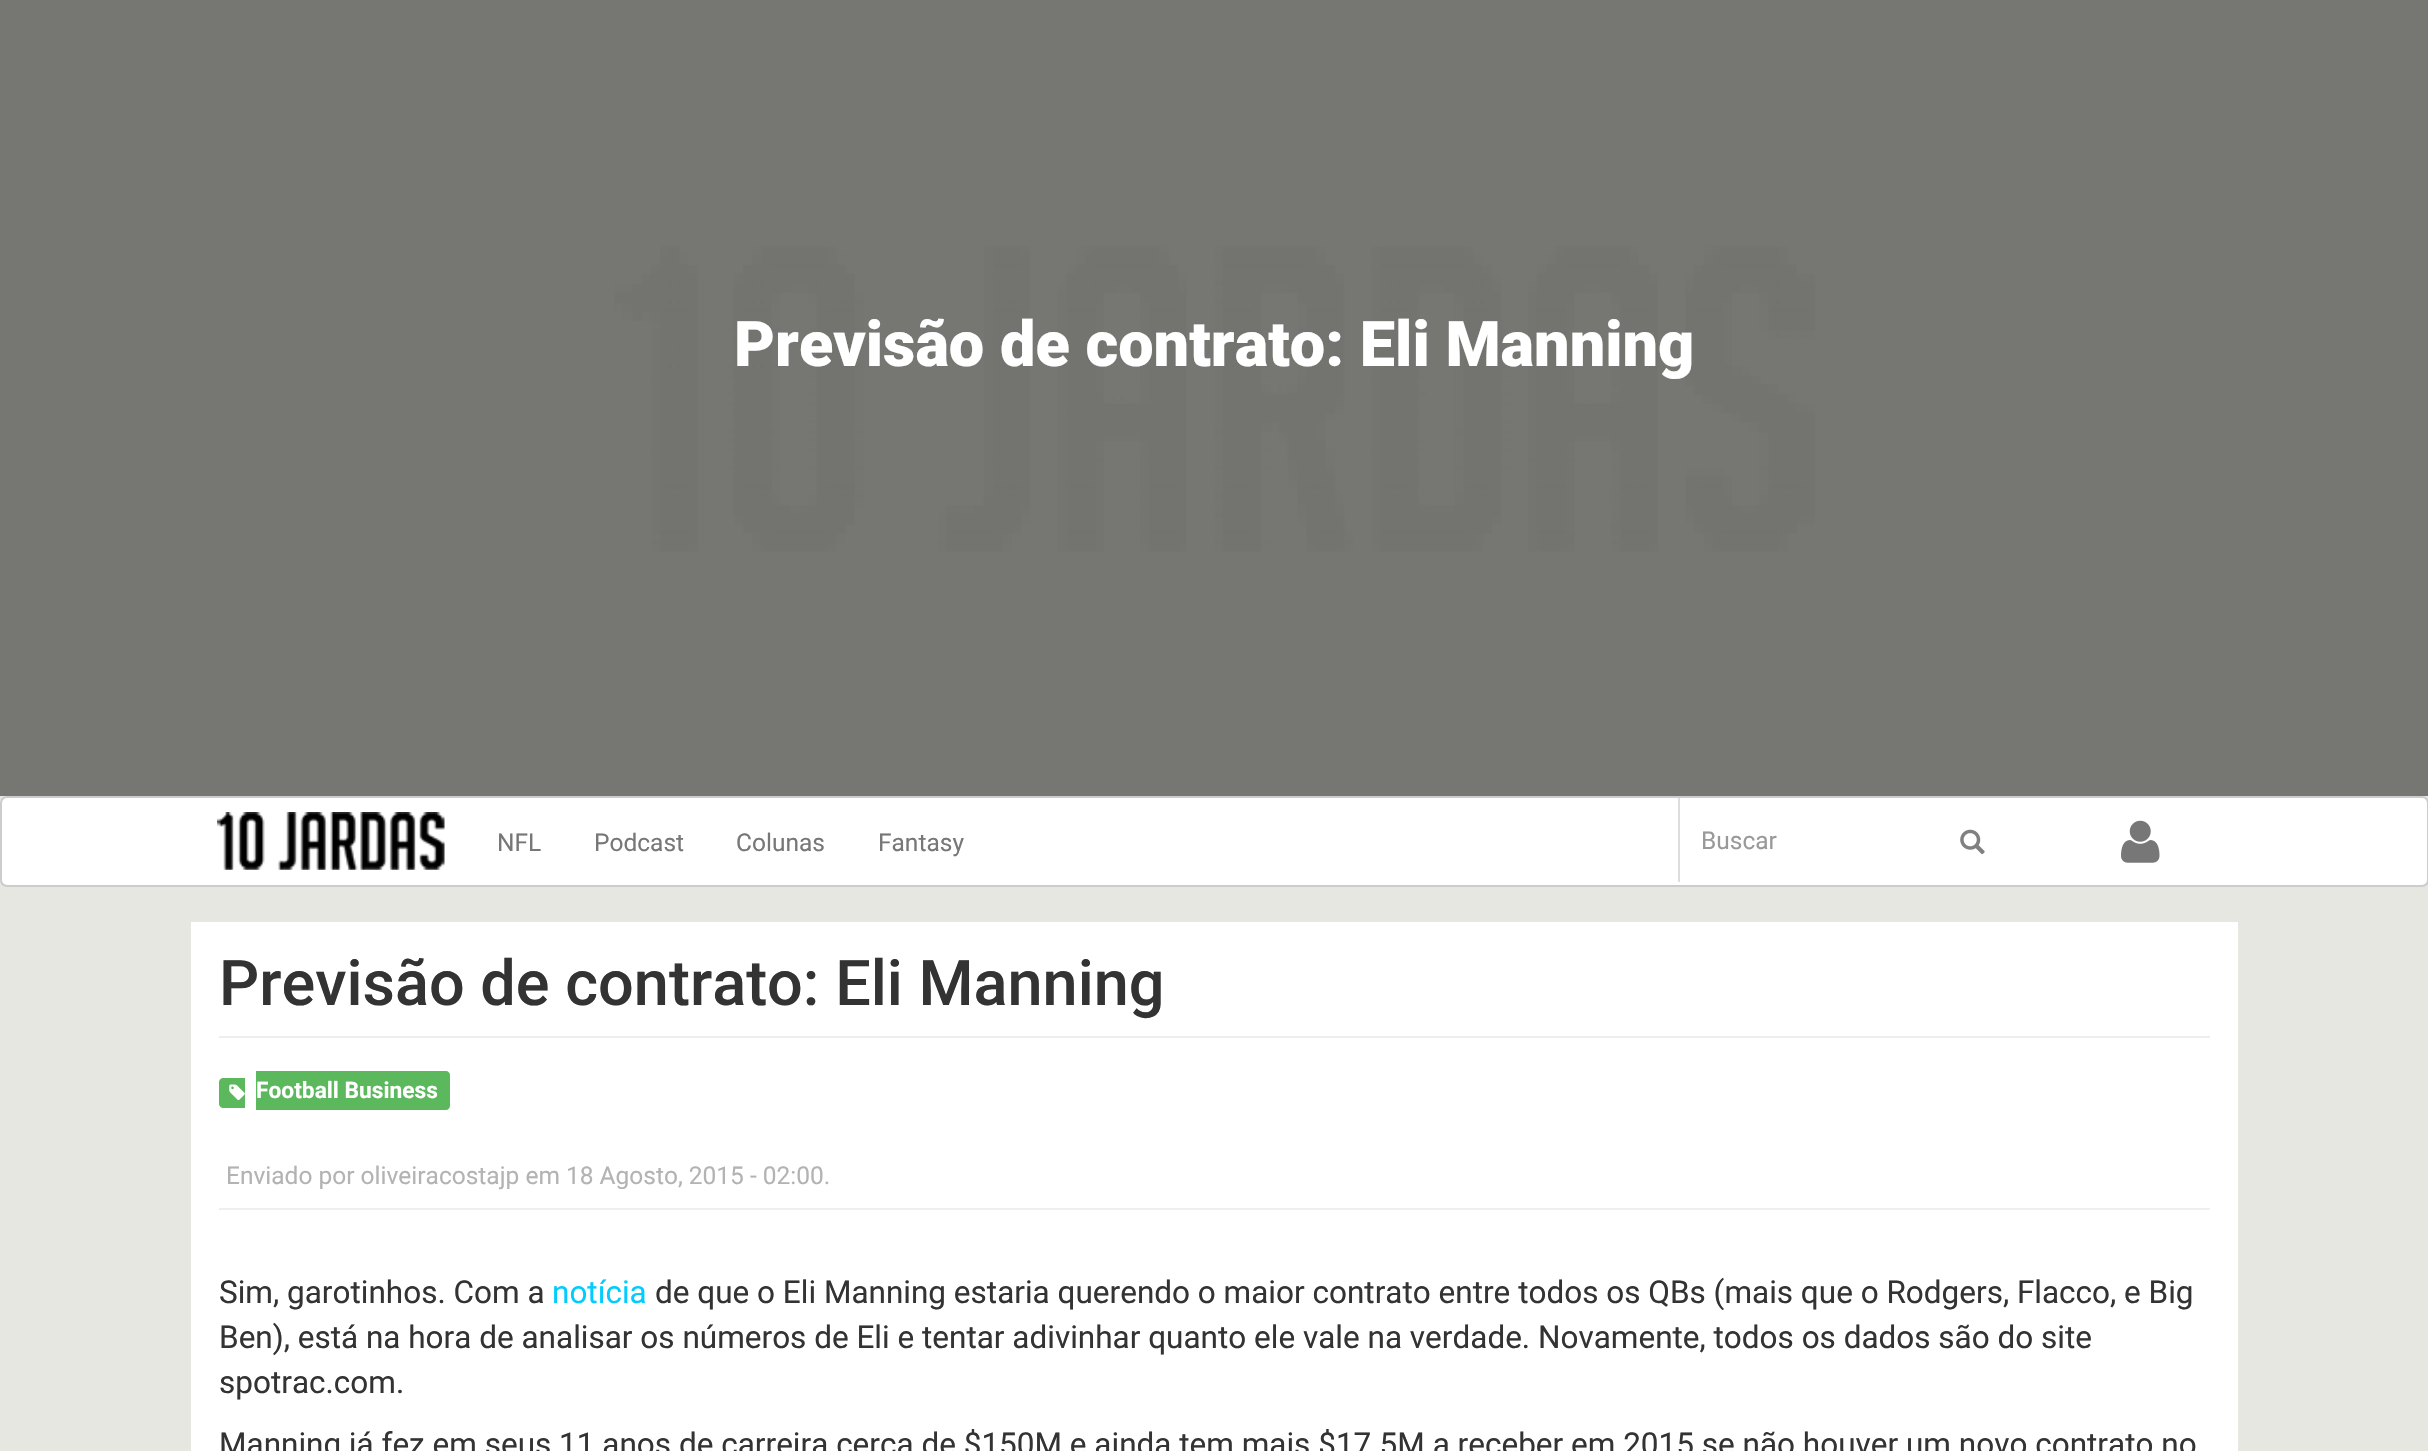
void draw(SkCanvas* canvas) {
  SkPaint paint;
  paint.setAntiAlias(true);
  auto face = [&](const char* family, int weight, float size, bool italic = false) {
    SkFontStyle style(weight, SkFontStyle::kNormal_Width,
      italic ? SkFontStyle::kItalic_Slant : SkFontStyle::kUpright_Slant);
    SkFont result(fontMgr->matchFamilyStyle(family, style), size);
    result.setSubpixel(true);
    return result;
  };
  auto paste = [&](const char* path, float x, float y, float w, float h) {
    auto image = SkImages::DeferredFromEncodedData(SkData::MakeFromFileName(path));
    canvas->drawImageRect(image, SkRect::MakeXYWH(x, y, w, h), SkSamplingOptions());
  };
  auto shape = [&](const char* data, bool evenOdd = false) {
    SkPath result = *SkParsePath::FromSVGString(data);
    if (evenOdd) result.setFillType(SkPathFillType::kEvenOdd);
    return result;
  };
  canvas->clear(0xffe7e7e2);
  paste("img/1.png", 0, 0, 2428, 796);
  paint.setColor(0xffffffff);
  canvas->drawRoundRect(SkRect::MakeXYWH(1, 797, 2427, 89), 6, 6, paint);
  paint.setStroke(true);
  paint.setStrokeWidth(2);
  paint.setColor(0xffcccccc);
  canvas->drawRoundRect(SkRect::MakeXYWH(1, 797, 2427, 89), 6, 6, paint);
  paste("img/2.png", 217, 812, 228, 58);
  paint.setStroke(false);
  paint.setColor(0xffdddddd);
  canvas->drawRect(SkRect::MakeXYWH(1678, 798, 2, 84), paint);
  paste("img/3.png", 1960, 829, 25, 26);
  paste("img/4.png", 2121, 820, 39, 43);
  paint.setColor(0xffffffff);
  canvas->drawRect(SkRect::MakeXYWH(191, 922, 2047, 529), paint);
  paint.setColor(0xffeeeeee);
  canvas->drawRect(SkRect::MakeXYWH(219, 1036, 1991, 2), paint);
  paint.setColor(0xff5cb85c);
  canvas->drawPath(shape("M223 1078H245V1108H223C221 1108 219 1106 219 1104V1082C219 1080 221 1078 223 1078Z"), paint);
  canvas->drawPath(shape("M256 1071H446C448 1071 450 1073 450 1075V1106C450 1108 448 1110 446 1110H256Z"), paint);
  paste("img/5.png", 229, 1084, 16, 17);
  paint.setColor(0xffefefef);
  canvas->drawRect(SkRect::MakeXYWH(219, 1208, 1991, 2), paint);
  auto f0 = face("Roboto", 900, 63);
  paint.setColor(0xffffffff);
  canvas->drawString("Previsão de contrato: Eli Manning", 734, 366, f0, paint);
  auto f1 = face("Roboto", 400, 24.5f);
  paint.setColor(0xff777777);
  {
    const struct { const char* s; float x, y; } items[] = {
      {"NFL", 497, 851},
      {"Podcast", 594, 851},
      {"Colunas", 736, 851},
      {"Fantasy", 878, 851},
    };
    for (auto [s, x, y] : items) {
      canvas->drawString(s, x, y, f1, paint);
    }
  }
  paint.setColor(0xff999999);
  canvas->drawString("Buscar", 1701, 849, f1, paint);
  auto f2 = face("Roboto", 500, 63);
  paint.setColor(0xff333333);
  canvas->drawString("Previsão de contrato: Eli Manning", 219, 1005, f2, paint);
  auto f3 = face("Roboto", 700, 22.75f);
  paint.setColor(0xffffffff);
  canvas->drawString("Football Business", 256, 1098, f3, paint);
  paint.setColor(0xffb3b3b3);
  canvas->drawString("Enviado por oliveiracostajp em 18 Agosto, 2015 - 02:00.", 226, 1184, f1, paint);
  auto f4 = face("Roboto", 400, 31.5f);
  paint.setColor(0xff333333);
  canvas->drawString("Sim, garotinhos. Com a", 219, 1303, f4, paint);
  paint.setColor(0xff00ccff);
  canvas->drawString("notícia", 552, 1303, f4, paint);
  paint.setColor(0xff333333);
  {
    const struct { const char* s; float x, y; } items[] = {
      {"de que o Eli Manning estaria querendo o maior contrato entre todos os QBs (mais que o Rodgers, Flacco, e Big", 655, 1303},
      {"Ben), está na hora de analisar os números de Eli e tentar adivinhar quanto ele vale na verdade. Novamente, todos os dados são do site", 219, 1348},
      {"spotrac.com.", 219, 1393},
      {"Manning já fez em seus 11 anos de carreira cerca de $150M e ainda tem mais $17.5M a receber em 2015 se não houver um novo contrato no", 219, 1455},
    };
    for (auto [s, x, y] : items) {
      canvas->drawString(s, x, y, f4, paint);
    }
  }
}
